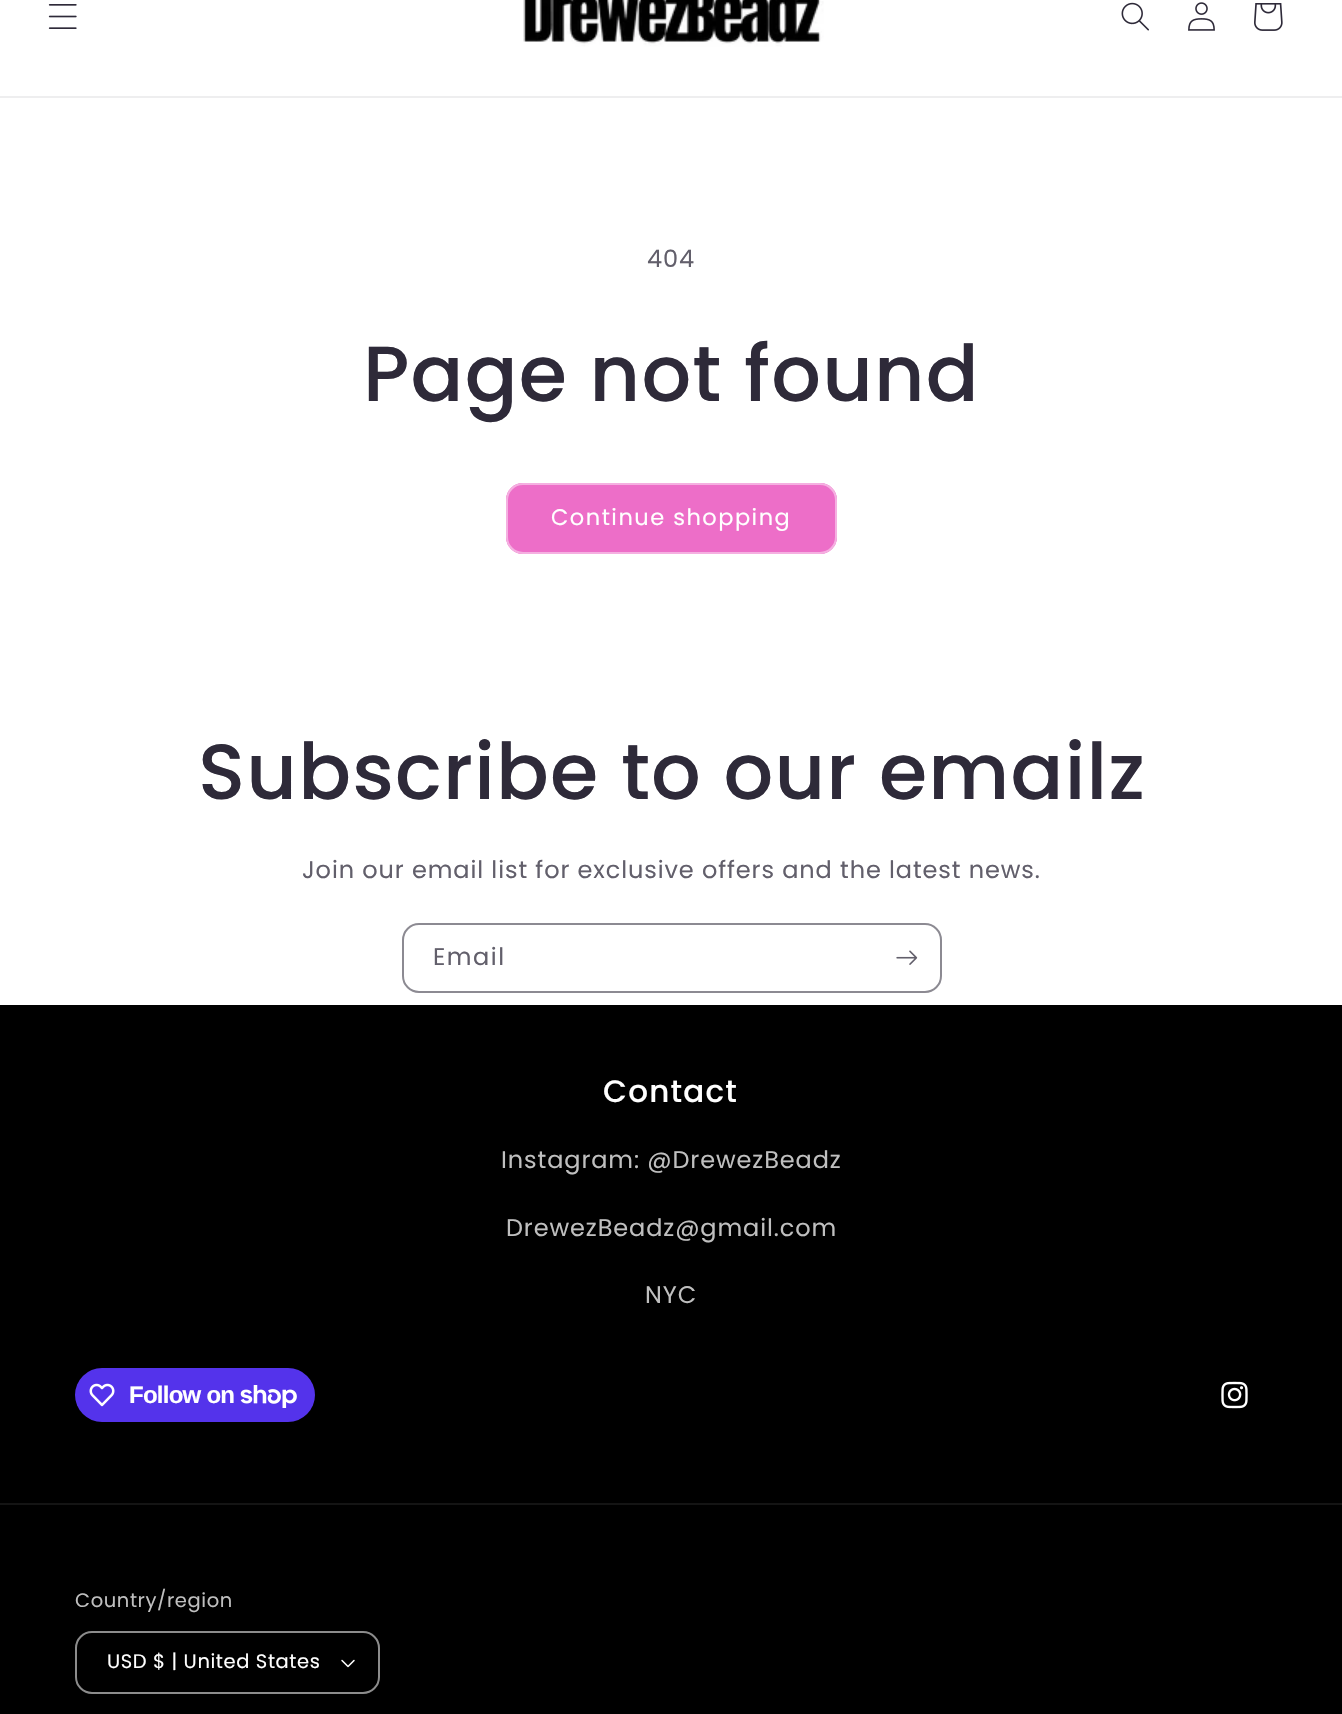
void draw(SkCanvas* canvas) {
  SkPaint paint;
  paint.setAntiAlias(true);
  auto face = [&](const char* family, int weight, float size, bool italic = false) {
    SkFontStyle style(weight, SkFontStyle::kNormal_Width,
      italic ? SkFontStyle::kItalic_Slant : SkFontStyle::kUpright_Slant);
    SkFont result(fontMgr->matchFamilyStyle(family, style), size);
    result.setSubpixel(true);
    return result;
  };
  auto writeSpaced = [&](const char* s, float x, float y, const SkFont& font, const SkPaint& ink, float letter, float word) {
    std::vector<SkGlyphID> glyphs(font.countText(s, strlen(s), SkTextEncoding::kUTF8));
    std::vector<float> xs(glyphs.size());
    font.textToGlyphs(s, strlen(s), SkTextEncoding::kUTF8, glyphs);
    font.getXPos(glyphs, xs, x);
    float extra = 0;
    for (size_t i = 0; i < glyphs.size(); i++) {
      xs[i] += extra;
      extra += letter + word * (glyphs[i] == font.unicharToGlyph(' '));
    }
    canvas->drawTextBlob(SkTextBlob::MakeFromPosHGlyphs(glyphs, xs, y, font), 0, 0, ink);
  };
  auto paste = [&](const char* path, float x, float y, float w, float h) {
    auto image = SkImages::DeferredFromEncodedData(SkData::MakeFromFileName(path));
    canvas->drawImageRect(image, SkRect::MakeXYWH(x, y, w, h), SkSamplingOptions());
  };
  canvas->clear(0xffffffff);
  paint.setColor(0xffeeeeef);
  canvas->drawRect(SkRect::MakeXYWH(0, 96, 1342, 2), paint);
  paste("img/1.png", 48, 4, 29, 25);
  paste("img/2.png", 523, 0, 301, 47);
  paste("img/3.png", 1121, 2, 28, 29);
  paste("img/4.png", 1188, 2, 27, 29);
  paste("img/5.png", 1254, 3, 29, 28);
  paint.setColor(0xffed6ec8);
  canvas->drawRoundRect(SkRect::MakeXYWH(506, 483, 331, 71), 17, 17, paint);
  paint.setStroke(true);
  paint.setStrokeWidth(2);
  canvas->drawRoundRect(SkRect::MakeXYWH(507, 484, 329, 69), 16, 16, paint);
  paint.setColor(0x73ffffff);
  canvas->drawRoundRect(SkRect::MakeXYWH(507, 484, 329, 69), 16, 16, paint);
  paint.setColor(0xff8c8a92);
  canvas->drawRoundRect(SkRect::MakeXYWH(403, 924, 538, 68), 16, 16, paint);
  paste("img/6.png", 896, 950, 22, 15);
  paint.setStroke(false);
  paint.setColor(0xff000000);
  canvas->drawRect(SkRect::MakeXYWH(0, 1005, 1342, 709), paint);
  paint.setColor(0xff5433eb);
  canvas->drawRoundRect(SkRect::MakeXYWH(75, 1368, 240, 54), 27, 27, paint);
  paste("img/7.png", 89, 1383, 26, 24);
  paste("img/8.png", 240, 1385, 57, 23);
  paste("img/9.png", 1221, 1381, 27, 28);
  paint.setColor(0xff141414);
  canvas->drawRect(SkRect::MakeXYWH(0, 1503, 1342, 2), paint);
  paste("img/10.png", 341, 1659, 14, 9);
  paint.setStroke(true);
  paint.setColor(0xff8c8c8c);
  canvas->drawRoundRect(SkRect::MakeXYWH(76, 1632, 303, 61), 16, 16, paint);
  auto f0 = face("Poppins", 400, 24);
  paint.setStroke(false);
  paint.setColor(0xff625f6b);
  writeSpaced("404", 647, 267, f0, paint, 0.9f, 0);
  auto f1 = face("Poppins", 500, 78);
  paint.setColor(0xff2e2a39);
  writeSpaced("Page not found", 363, 401, f1, paint, 1.2f, 0);
  auto f2 = face("Poppins", 400, 22.5f);
  paint.setColor(0xffffffff);
  writeSpaced("Continue shopping", 551, 525, f2, paint, 1.5f, 0);
  paint.setColor(0xff2e2a39);
  writeSpaced("Subscribe to our emailz", 198, 799, f1, paint, 1.2f, 0);
  paint.setColor(0xff625f6b);
  writeSpaced("Join our email list for exclusive offers and the latest news.", 302, 878, f0, paint, 0.9f, 0);
  writeSpaced("Email", 433, 965, f0, paint, 1.5f, 0);
  auto f3 = face("Poppins", 500, 31);
  paint.setColor(0xffffffff);
  writeSpaced("Contact", 603, 1102, f3, paint, 1.2f, 0);
  paint.setColor(0xffbfbfbf);
  {
    const struct { const char* s; float x, y; } items[] = {
      {"Instagram: @DrewezBeadz", 501, 1168},
      {"DrewezBeadz@gmail.com", 506, 1236},
      {"NYC", 645, 1303},
    };
    for (auto [s, x, y] : items) {
      writeSpaced(s, x, y, f0, paint, 0.9f, 0);
    }
  }
  auto f4 = face("Liberation Sans", 700, 24);
  paint.setColor(0xffffffff);
  writeSpaced("Follow on", 129, 1403, f4, paint, -0.75f, 0);
  auto f5 = face("Poppins", 400, 19.5f);
  paint.setColor(0xffbfbfbf);
  writeSpaced("Country/region", 75, 1607, f5, paint, 0.6f, 0);
  paint.setColor(0xffffffff);
  writeSpaced("USD $ | United States", 107, 1668, f5, paint, 0.6f, 0);
}
